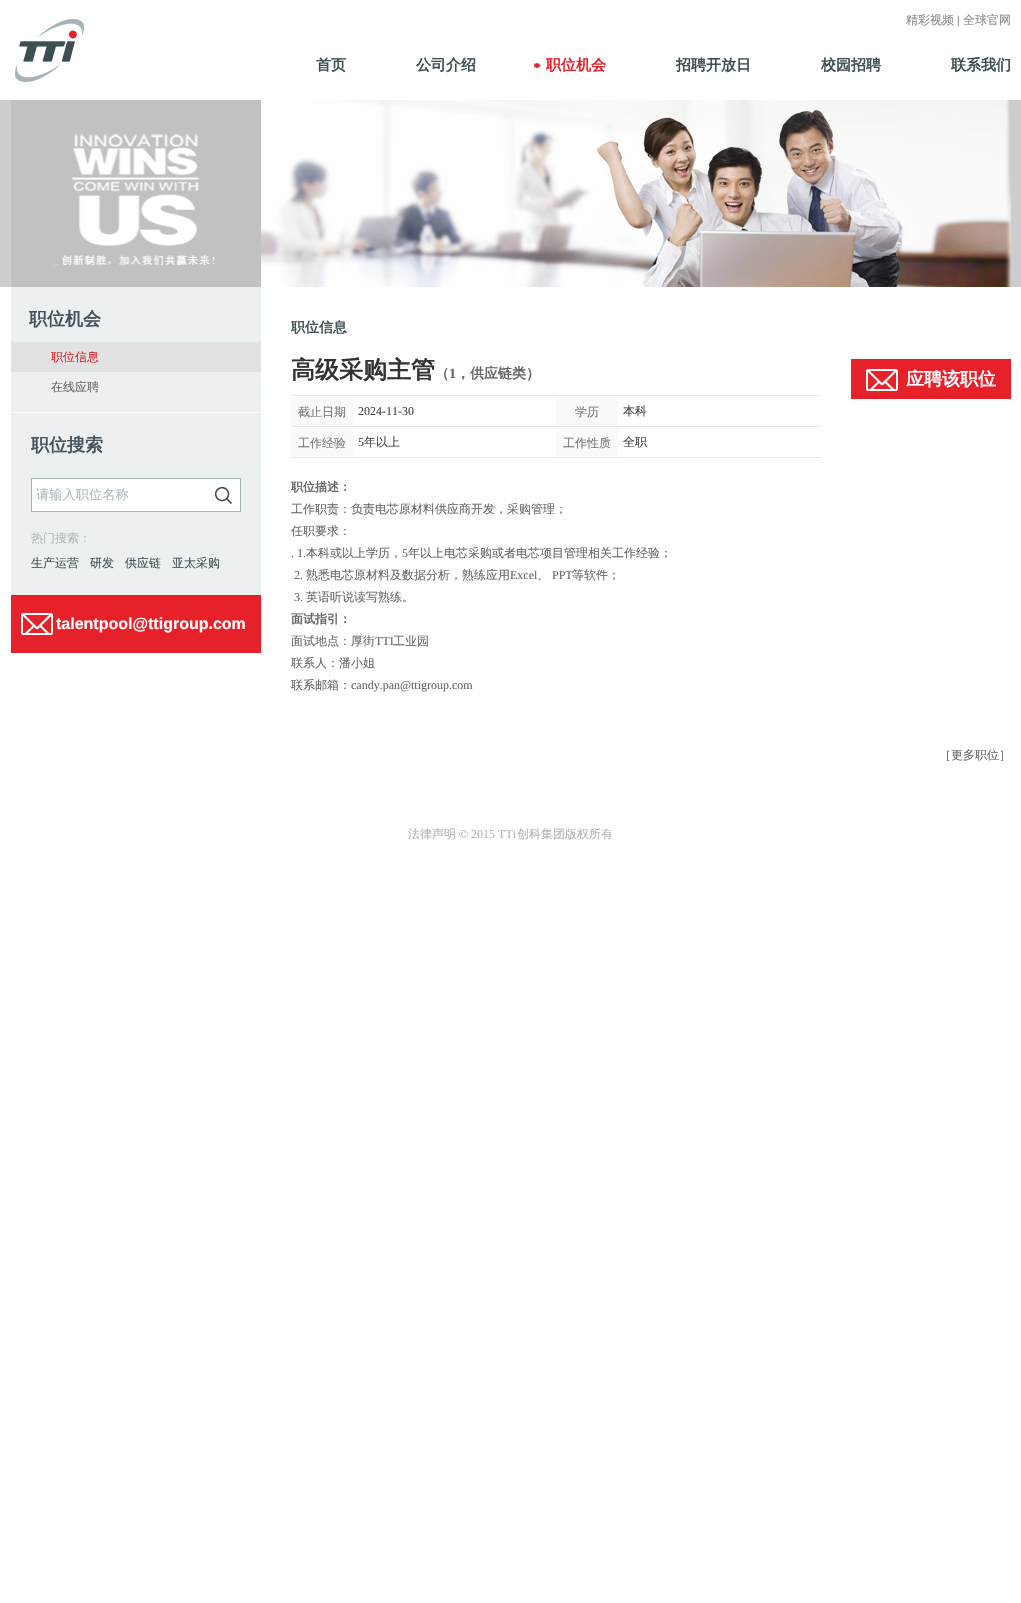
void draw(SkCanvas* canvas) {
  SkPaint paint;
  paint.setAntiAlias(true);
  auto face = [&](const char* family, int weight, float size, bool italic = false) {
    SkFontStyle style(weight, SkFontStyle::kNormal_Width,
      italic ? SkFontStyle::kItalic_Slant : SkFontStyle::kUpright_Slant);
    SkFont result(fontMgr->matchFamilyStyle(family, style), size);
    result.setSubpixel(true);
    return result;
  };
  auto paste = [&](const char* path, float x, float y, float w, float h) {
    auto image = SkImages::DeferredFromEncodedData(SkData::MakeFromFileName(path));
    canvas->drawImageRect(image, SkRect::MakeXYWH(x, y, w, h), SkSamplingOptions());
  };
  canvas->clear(0xffffffff);
  paste("img/1.png", 15, 19, 69, 63);
  paste("img/2.png", 534, 63, 6, 5);
  paint.setColor(0xffcdcdcd);
  canvas->drawRect(SkRect::MakeXYWH(0, 100, 1021, 187), paint);
  paste("img/3.png", 11, 100, 250, 187);
  paste("img/4.png", 261, 100, 750, 187);
  {
    const struct { float x, y, w, h; SkColor color; } items[] = {
      {11, 287, 250, 125, 0xffedf0f1},
      {11, 342, 250, 30, 0xffe2e2e2},
      {11, 413, 250, 182, 0xffedf0f1},
    };
    for (auto [x, y, w, h, color] : items) {
      paint.setColor(color);
      canvas->drawRect(SkRect::MakeXYWH(x, y, w, h), paint);
    }
  }
  paint.setColor(0xffffffff);
  canvas->drawRect(SkRect::MakeXYWH(31.5f, 478.5f, 209, 33), paint);
  paint.setStroke(true);
  paint.setStrokeWidth(1);
  paint.setColor(0xffa6b4b7);
  canvas->drawRect(SkRect::MakeXYWH(31.5f, 478.5f, 209, 33), paint);
  paste("img/5.png", 215, 487, 17, 17);
  paint.setStroke(false);
  paint.setColor(0xffe62129);
  canvas->drawRect(SkRect::MakeXYWH(11, 595, 250, 58), paint);
  paste("img/6.png", 21, 613, 32, 22);
  canvas->drawRect(SkRect::MakeXYWH(851, 359, 160, 40), paint);
  paste("img/6.png", 866, 369, 32, 22);
  {
    const struct { float x, y, w, h; SkColor color; } items[] = {
      {291, 395, 530, 1, 0xffe8e8e8},
      {291, 397, 62, 29, 0xfff9f9f9},
      {556, 397, 62, 29, 0xfff9f9f9},
      {291, 426, 530, 1, 0xffe8e8e8},
      {291, 428, 62, 29, 0xfff9f9f9},
      {556, 428, 62, 29, 0xfff9f9f9},
      {291, 457, 530, 1, 0xffe8e8e8},
    };
    for (auto [x, y, w, h, color] : items) {
      paint.setColor(color);
      canvas->drawRect(SkRect::MakeXYWH(x, y, w, h), paint);
    }
  }
  auto f0 = face("WenQuanYi Zen Hei", 500, 12);
  paint.setColor(0xff898989);
  canvas->drawString("精彩视频", 906, 24, f0, paint);
  auto f1 = face("Liberation Serif", 400, 12);
  paint.setColor(0xff666666);
  canvas->drawString("|", 957, 24, f1, paint);
  paint.setColor(0xff898989);
  canvas->drawString("全球官网", 963, 24, f0, paint);
  auto f2 = face("WenQuanYi Zen Hei", 700, 15);
  paint.setColor(0xff3c4f53);
  canvas->drawString("首页", 316, 70, f2, paint);
  canvas->drawString("公司介绍", 416, 70, f2, paint);
  paint.setColor(0xffe62129);
  canvas->drawString("职位机会", 546, 70, f2, paint);
  paint.setColor(0xff3c4f53);
  {
    const struct { const char* s; float x, y; } items[] = {
      {"招聘开放日", 676, 70},
      {"校园招聘", 821, 70},
      {"联系我们", 951, 70},
    };
    for (auto [s, x, y] : items) {
      canvas->drawString(s, x, y, f2, paint);
    }
  }
  auto f3 = face("WenQuanYi Zen Hei", 700, 18);
  paint.setColor(0xff44535a);
  canvas->drawString("职位机会", 29, 325, f3, paint);
  paint.setColor(0xffe62129);
  canvas->drawString("职位信息", 51, 361, f0, paint);
  paint.setColor(0xff666666);
  canvas->drawString("在线应聘", 51, 391, f0, paint);
  paint.setColor(0xff44535a);
  canvas->drawString("职位搜索", 31, 451, f3, paint);
  auto f4 = face("WenQuanYi Zen Hei", 500, 13.25f);
  paint.setColor(0xffadbabd);
  canvas->drawString("请输入职位名称", 36, 499, f4, paint);
  canvas->drawString("热门搜索：", 31, 542, f0, paint);
  paint.setColor(0xff3c4f53);
  {
    const struct { const char* s; float x, y; } items[] = {
      {"生产运营", 31, 567},
      {"研发", 90, 567},
      {"供应链", 125, 567},
      {"亚太采购", 172, 567},
    };
    for (auto [s, x, y] : items) {
      canvas->drawString(s, x, y, f0, paint);
    }
  }
  auto f5 = face("Liberation Sans", 700, 16);
  paint.setColor(0xffffffff);
  canvas->drawString("talentpool@ttigroup.com", 56, 629, f5, paint);
  auto f6 = face("WenQuanYi Zen Hei", 700, 14);
  paint.setColor(0xff44535a);
  canvas->drawString("职位信息", 291, 332, f6, paint);
  auto f7 = face("WenQuanYi Zen Hei", 700, 24);
  paint.setColor(0xff333333);
  canvas->drawString("高级采购主管", 291, 378, f7, paint);
  paint.setColor(0xff666666);
  canvas->drawString("（", 435, 378, f6, paint);
  auto f8 = face("Liberation Serif", 700, 14);
  canvas->drawString("1", 449, 378, f8, paint);
  canvas->drawString("，供应链类）", 456, 378, f6, paint);
  paint.setColor(0xffffffff);
  canvas->drawString("应聘该职位", 906, 385, f3, paint);
  paint.setColor(0xff777777);
  canvas->drawString("截止日期", 298, 416, f0, paint);
  paint.setColor(0xff444444);
  canvas->drawString("2024-11-30", 358, 415, f1, paint);
  paint.setColor(0xff777777);
  canvas->drawString("学历", 575, 416, f0, paint);
  paint.setColor(0xff444444);
  canvas->drawString("本科", 623, 415, f0, paint);
  paint.setColor(0xff777777);
  canvas->drawString("工作经验", 298, 447, f0, paint);
  paint.setColor(0xff444444);
  canvas->drawString("5", 358, 446, f1, paint);
  canvas->drawString("年以上", 364, 446, f0, paint);
  paint.setColor(0xff777777);
  canvas->drawString("工作性质", 563, 447, f0, paint);
  paint.setColor(0xff444444);
  canvas->drawString("全职", 623, 446, f0, paint);
  auto f9 = face("WenQuanYi Zen Hei", 700, 12);
  paint.setColor(0xff666666);
  canvas->drawString("职位描述：", 291, 491, f9, paint);
  canvas->drawString("工作职责：负责电芯原材料供应商开发，采购管理；", 291, 513, f0, paint);
  canvas->drawString("任职要求：", 291, 535, f0, paint);
  canvas->drawString(". 1.", 291, 557, f1, paint);
  canvas->drawString("本科或以上学历，", 306, 557, f0, paint);
  canvas->drawString("5", 402, 557, f1, paint);
  canvas->drawString("年以上电芯采购或者电芯项目管理相关工作经验；", 408, 557, f0, paint);
  canvas->drawString("2.", 294, 579, f1, paint);
  canvas->drawString("熟悉电芯原材料及数据分析，熟练应用", 306, 579, f0, paint);
  canvas->drawString("Excel", 510, 579, f1, paint);
  canvas->drawString("PPT", 552, 579, f1, paint);
  canvas->drawString("等软件；", 572, 579, f0, paint);
  canvas->drawString("、", 537, 579, f0, paint);
  canvas->drawString("3.", 294, 601, f1, paint);
  canvas->drawString("英语听说读写熟练。", 306, 601, f0, paint);
  canvas->drawString("面试指引：", 291, 623, f9, paint);
  canvas->drawString("面试地点：厚街", 291, 645, f0, paint);
  canvas->drawString("TTI", 375, 645, f1, paint);
  {
    const struct { const char* s; float x, y; } items[] = {
      {"工业园", 393, 645},
      {"联系人：潘小姐", 291, 667},
      {"联系邮箱：", 291, 689},
    };
    for (auto [s, x, y] : items) {
      canvas->drawString(s, x, y, f0, paint);
    }
  }
  canvas->drawString("candy.pan@ttigroup.com", 351, 689, f1, paint);
  canvas->drawString("［更多职位］", 939, 759, f0, paint);
  paint.setColor(0xffb1b4b3);
  canvas->drawString("法律声明", 408, 838, f0, paint);
  canvas->drawString("© 2015 TTi", 459, 838, f1, paint);
  canvas->drawString("创科集团版权所有", 517, 838, f0, paint);
}
